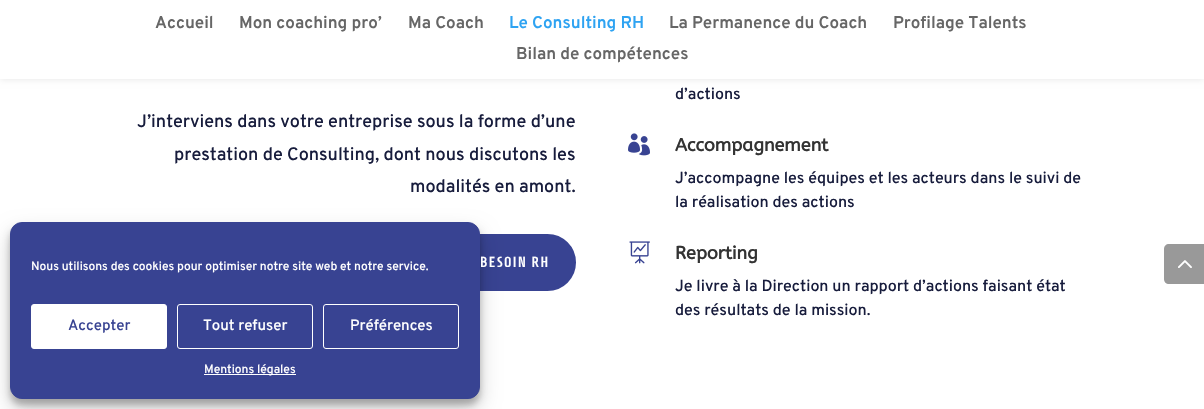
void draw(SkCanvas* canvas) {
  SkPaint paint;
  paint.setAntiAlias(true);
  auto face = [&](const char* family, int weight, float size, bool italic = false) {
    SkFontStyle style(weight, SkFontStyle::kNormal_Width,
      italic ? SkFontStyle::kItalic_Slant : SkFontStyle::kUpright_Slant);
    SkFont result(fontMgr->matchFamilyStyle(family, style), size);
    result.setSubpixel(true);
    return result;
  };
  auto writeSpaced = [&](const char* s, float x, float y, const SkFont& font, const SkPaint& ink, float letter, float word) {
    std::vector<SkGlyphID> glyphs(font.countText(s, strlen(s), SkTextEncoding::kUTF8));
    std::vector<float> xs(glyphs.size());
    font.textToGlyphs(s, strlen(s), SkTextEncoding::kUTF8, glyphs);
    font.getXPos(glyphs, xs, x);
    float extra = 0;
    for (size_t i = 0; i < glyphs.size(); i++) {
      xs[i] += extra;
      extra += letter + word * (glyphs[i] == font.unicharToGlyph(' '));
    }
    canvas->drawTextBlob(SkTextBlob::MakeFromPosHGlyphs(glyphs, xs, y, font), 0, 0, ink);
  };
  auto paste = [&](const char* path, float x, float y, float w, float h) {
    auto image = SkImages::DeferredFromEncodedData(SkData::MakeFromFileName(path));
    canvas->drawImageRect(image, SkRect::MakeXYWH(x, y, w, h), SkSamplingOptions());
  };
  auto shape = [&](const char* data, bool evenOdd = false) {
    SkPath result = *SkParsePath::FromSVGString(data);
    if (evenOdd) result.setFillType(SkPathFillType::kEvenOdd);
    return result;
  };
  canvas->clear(0xffffffff);
  paint.setColor(0x1a000000);
  paint.setMaskFilter(SkMaskFilter::MakeBlur(kNormal_SkBlurStyle, 3.5f));
  canvas->drawRect(SkRect::MakeXYWH(0, 0, 1204, 79), paint);
  paint.setMaskFilter(nullptr);
  paint.setColor(0xffffffff);
  canvas->drawRect(SkRect::MakeXYWH(0, 0, 1204, 79), paint);
  paint.setColor(0xff384392);
  canvas->drawRoundRect(SkRect::MakeXYWH(349, 240, 221, 45), 22.5f, 22.5f, paint);
  paint.setStroke(true);
  paint.setStrokeWidth(12);
  canvas->drawRoundRect(SkRect::MakeXYWH(349, 240, 221, 45), 22.5f, 22.5f, paint);
  paste("img/1.png", 628, 133, 22, 23);
  paste("img/2.png", 629, 241, 21, 23);
  paint.setStroke(false);
  paint.setColor(0xff999999);
  canvas->drawPath(shape("M1169 244H1204V284H1169C1166 284 1164 282 1164 279V249C1164 246 1166 244 1169 244Z"), paint);
  paste("img/3.png", 1178, 260, 14, 8);
  paint.setColor(0x3b000000);
  paint.setMaskFilter(SkMaskFilter::MakeBlur(kNormal_SkBlurStyle, 3));
  canvas->drawRoundRect(SkRect::MakeXYWH(10, 228, 470, 177), 12, 12, paint);
  paint.setMaskFilter(nullptr);
  paint.setColor(0x30000000);
  paint.setMaskFilter(SkMaskFilter::MakeBlur(kNormal_SkBlurStyle, 10));
  canvas->drawRoundRect(SkRect::MakeXYWH(10, 232, 470, 177), 12, 12, paint);
  paint.setMaskFilter(nullptr);
  paint.setColor(0xff384392);
  canvas->drawRoundRect(SkRect::MakeXYWH(10.5f, 222.5f, 469, 176), 11.5f, 11.5f, paint);
  paint.setStroke(true);
  paint.setStrokeWidth(1);
  canvas->drawRoundRect(SkRect::MakeXYWH(10.5f, 222.5f, 469, 176), 11.5f, 11.5f, paint);
  paint.setStroke(false);
  paint.setColor(0xffffffff);
  canvas->drawRoundRect(SkRect::MakeXYWH(31.5f, 304.5f, 135, 44), 2.5f, 2.5f, paint);
  paint.setStroke(true);
  canvas->drawRoundRect(SkRect::MakeXYWH(31.5f, 304.5f, 135, 44), 2.5f, 2.5f, paint);
  canvas->drawRoundRect(SkRect::MakeXYWH(177.5f, 304.5f, 135, 44), 2.5f, 2.5f, paint);
  canvas->drawRoundRect(SkRect::MakeXYWH(323.5f, 304.5f, 135, 44), 2.5f, 2.5f, paint);
  paint.setStroke(false);
  canvas->drawRect(SkRect::MakeXYWH(204, 374, 92, 1), paint);
  auto f0 = face("Overpass", 600, 17);
  paint.setColor(0xff666666);
  {
    const struct { const char* s; float x, y; } items[] = {
      {"Accueil", 155, 28},
      {"Mon coaching pro’", 239, 28},
      {"Ma Coach", 408, 28},
    };
    for (auto [s, x, y] : items) {
      canvas->drawString(s, x, y, f0, paint);
    }
  }
  paint.setColor(0xff2ea3f2);
  canvas->drawString("Le Consulting RH", 509, 28, f0, paint);
  paint.setColor(0xff666666);
  {
    const struct { const char* s; float x, y; } items[] = {
      {"La Permanence du Coach", 669, 28},
      {"Profilage Talents", 893, 28},
      {"Bilan de compétences", 516, 59},
    };
    for (auto [s, x, y] : items) {
      canvas->drawString(s, x, y, f0, paint);
    }
  }
  auto f1 = face("Overpass", 500, 18);
  paint.setColor(0xff171c3c);
  {
    const struct { const char* s; float x, y; } items[] = {
      {"J’interviens dans votre entreprise sous la forme d’une", 137, 127},
      {"prestation de Consulting, dont nous discutons les", 174, 160},
      {"modalités en amont.", 410, 192},
    };
    for (auto [s, x, y] : items) {
      canvas->drawString(s, x, y, f1, paint);
    }
  }
  auto f2 = face("Homenaje", 700, 14);
  paint.setColor(0xffffffff);
  writeSpaced("BESOIN RH", 480, 267, f2, paint, 2, 0);
  auto f3 = face("Overpass", 500, 16);
  paint.setColor(0xff171c3c);
  canvas->drawString("d’actions", 675, 99, f3, paint);
  auto f4 = face("ABeeZee", 700, 18);
  paint.setColor(0xff333333);
  canvas->drawString("Accompagnement", 675, 151, f4, paint);
  paint.setColor(0xff171c3c);
  canvas->drawString("J’accompagne les équipes et les acteurs dans le suivi de", 675, 183, f3, paint);
  canvas->drawString("la réalisation des actions", 675, 207, f3, paint);
  paint.setColor(0xff333333);
  canvas->drawString("Reporting", 675, 259, f4, paint);
  paint.setColor(0xff171c3c);
  canvas->drawString("Je livre à la Direction un rapport d’actions faisant état", 675, 291, f3, paint);
  canvas->drawString("des résultats de la mission.", 675, 315, f3, paint);
  auto f5 = face("Overpass", 500, 12);
  paint.setColor(0xffffffff);
  canvas->drawString("Nous utilisons des cookies pour optimiser notre site web et notre service.", 31, 270, f5, paint);
  auto f6 = face("Overpass", 500, 15);
  paint.setColor(0xff384392);
  canvas->drawString("Accepter", 68, 330, f6, paint);
  paint.setColor(0xffffffff);
  canvas->drawString("Tout refuser", 203, 330, f6, paint);
  canvas->drawString("Préférences", 350, 330, f6, paint);
  canvas->drawString("Mentions légales", 204, 373, f5, paint);
}
